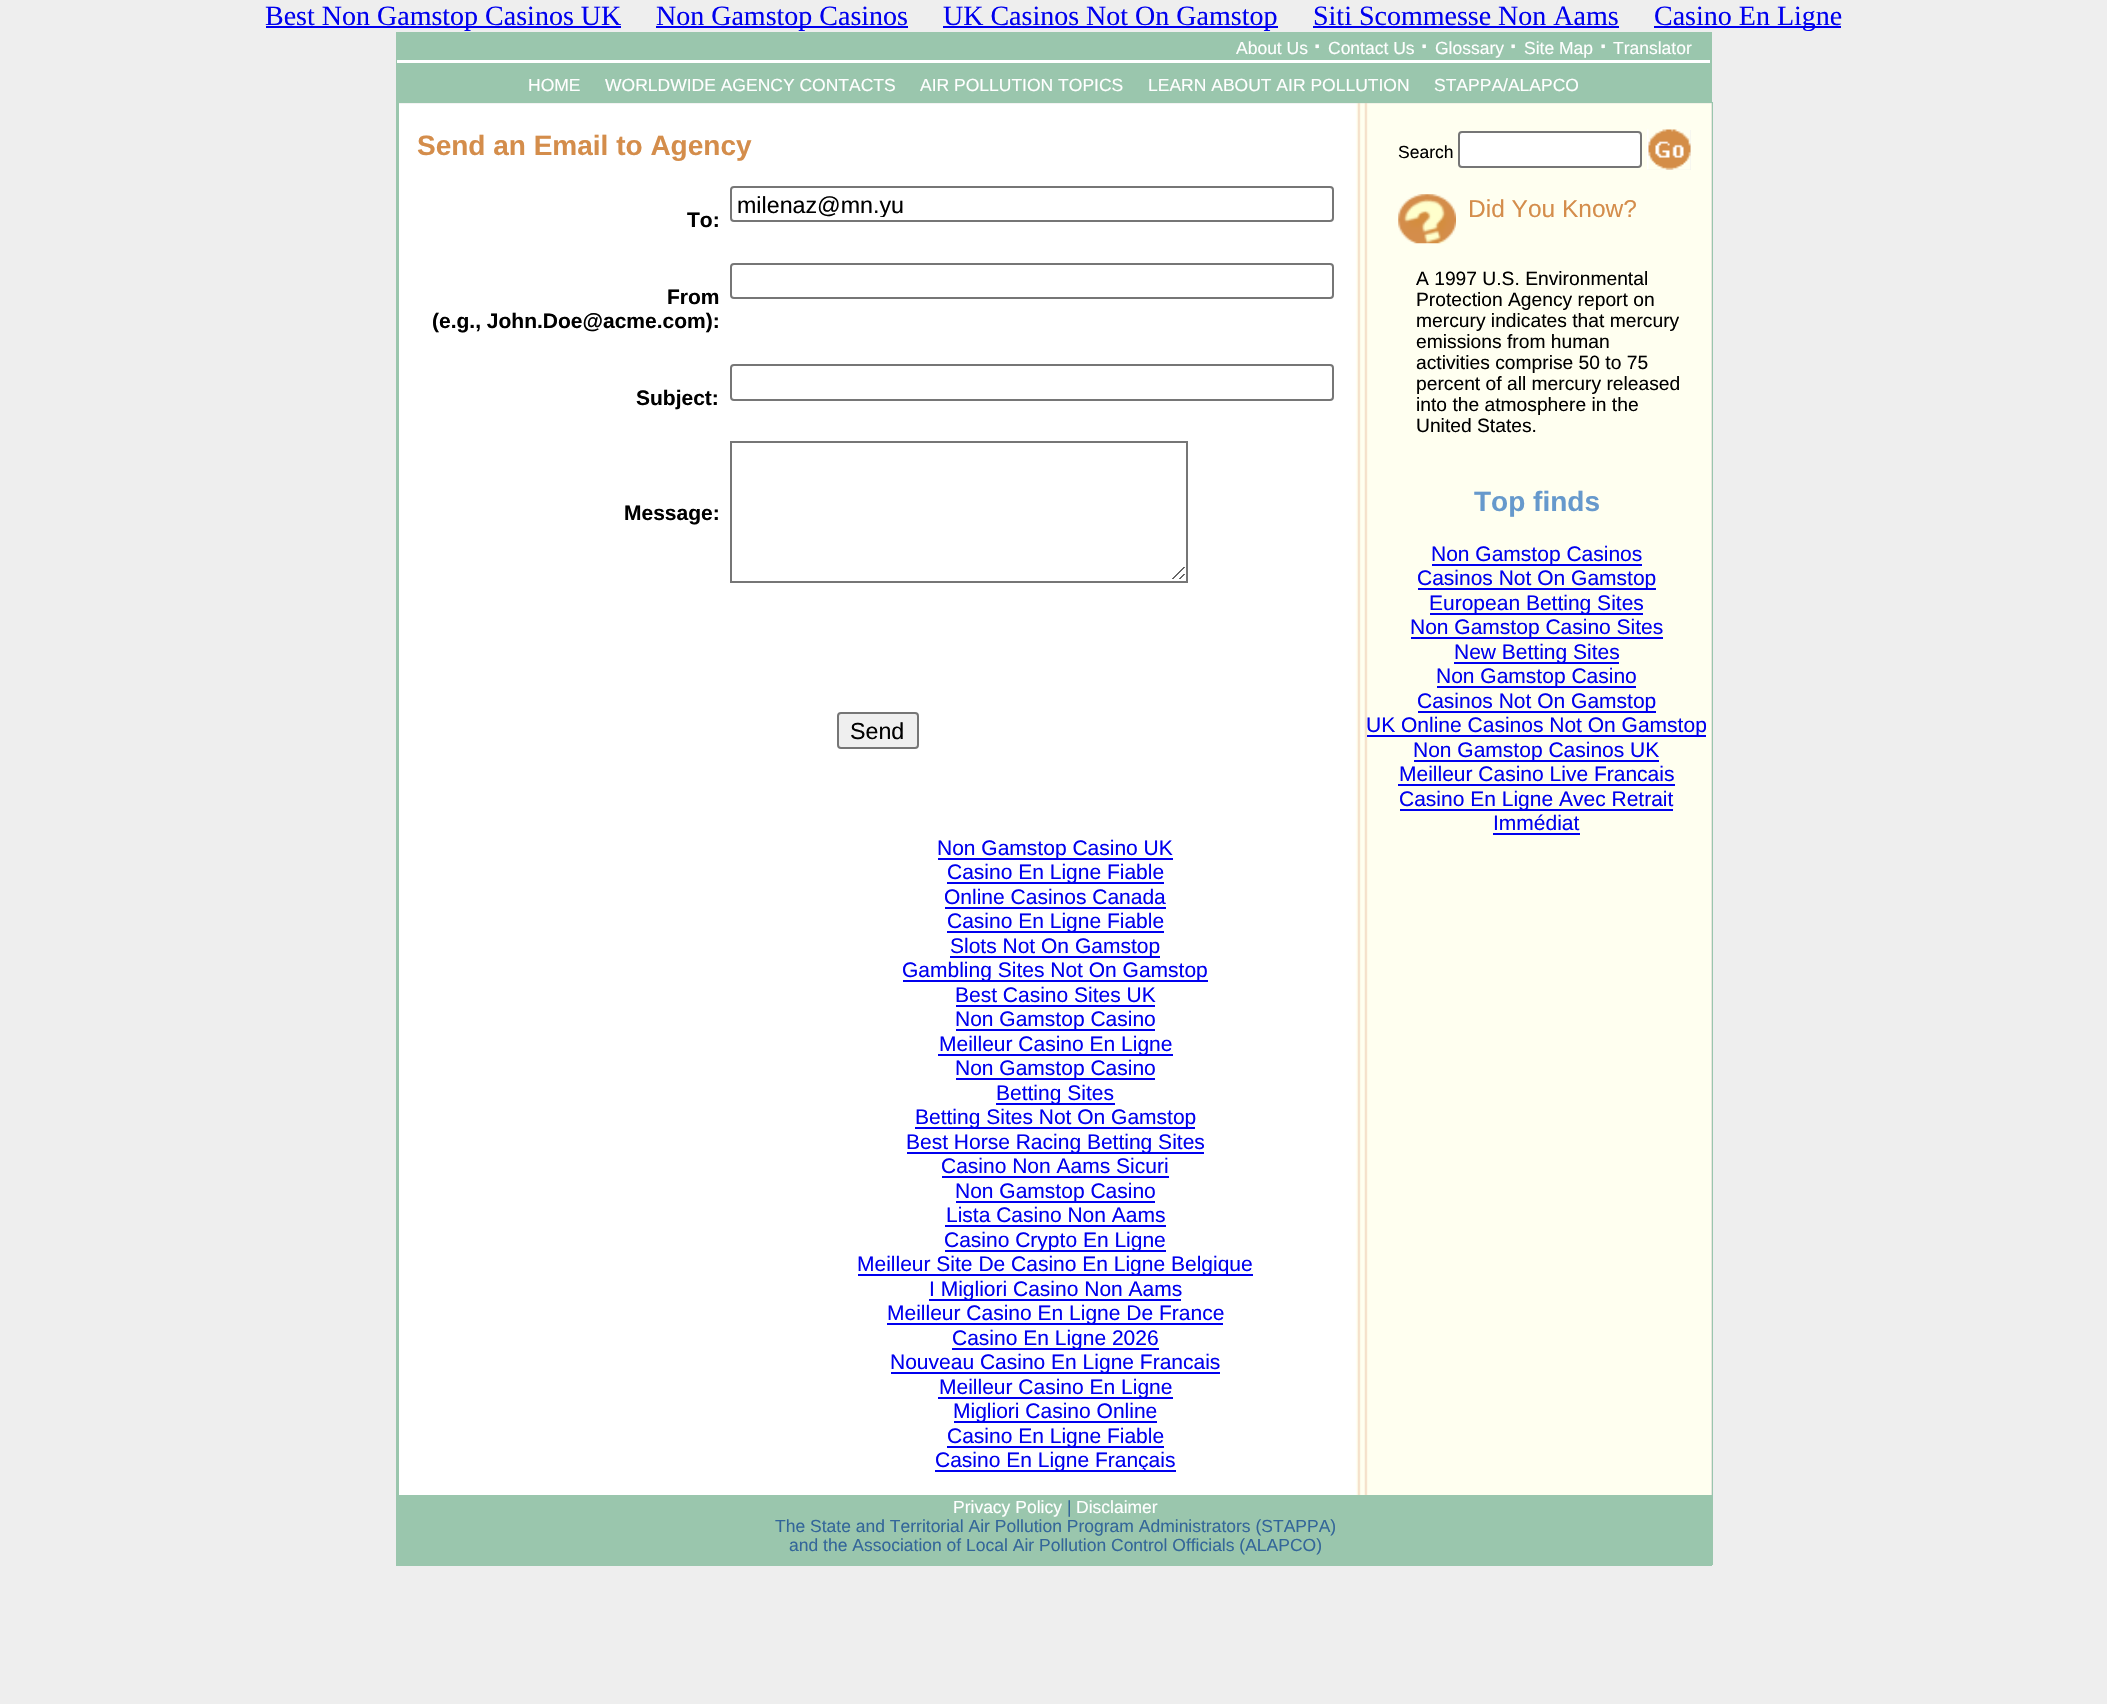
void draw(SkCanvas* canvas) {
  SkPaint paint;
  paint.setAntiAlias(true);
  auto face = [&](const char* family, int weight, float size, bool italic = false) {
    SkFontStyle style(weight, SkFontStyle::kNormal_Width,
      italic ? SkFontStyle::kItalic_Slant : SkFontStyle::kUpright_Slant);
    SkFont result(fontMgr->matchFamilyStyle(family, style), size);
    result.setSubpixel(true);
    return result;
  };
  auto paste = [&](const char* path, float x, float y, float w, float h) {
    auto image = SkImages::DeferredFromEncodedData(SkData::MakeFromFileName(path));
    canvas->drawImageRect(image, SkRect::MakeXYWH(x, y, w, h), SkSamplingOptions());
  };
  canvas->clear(0xffeeeeee);
  {
    const struct { float x, y, w, h; SkColor color; } items[] = {
      {266, 26, 355, 2, 0xff0000ee},
      {656, 26, 252, 2, 0xff0000ee},
      {943, 26, 335, 2, 0xff0000ee},
      {1313, 26, 306, 2, 0xff0000ee},
      {1654, 26, 187, 2, 0xff0000ee},
    };
    for (auto [x, y, w, h, color] : items) {
      paint.setColor(color);
      canvas->drawRect(SkRect::MakeXYWH(x, y, w, h), paint);
    }
  }
  paint.setStroke(true);
  paint.setStrokeWidth(2);
  paint.setColor(0xff9ac6ad);
  canvas->drawRect(SkRect::MakeXYWH(397, 33, 1314, 1532), paint);
  paint.setStroke(false);
  {
    const struct { float x, y, w, h; SkColor color; } items[] = {
      {398, 34, 1312, 26, 0xff9ac6ad},
      {397, 60, 1313, 3, 0xffffffff},
      {398, 63, 1312, 39, 0xff9ac6ad},
    };
    for (auto [x, y, w, h, color] : items) {
      paint.setColor(color);
      canvas->drawRect(SkRect::MakeXYWH(x, y, w, h), paint);
    }
  }
  paint.setStroke(true);
  canvas->drawRect(SkRect::MakeXYWH(398, 103, 1314, 1461), paint);
  paint.setStroke(false);
  paint.setColor(0xffcccccc);
  canvas->drawRect(SkRect::MakeXYWH(399, 103, 1313, 1392), paint);
  paste("img/1.png", 399, 103, 1313, 1392);
  paint.setStroke(true);
  paint.setColor(0xff767676);
  canvas->drawRoundRect(SkRect::MakeXYWH(731, 187, 602, 34), 3, 3, paint);
  canvas->drawRoundRect(SkRect::MakeXYWH(731, 264, 602, 34), 3, 3, paint);
  canvas->drawRoundRect(SkRect::MakeXYWH(731, 365, 602, 35), 3, 3, paint);
  paste("img/2.png", 732, 443, 454, 138);
  canvas->drawRect(SkRect::MakeXYWH(731, 442, 456, 140), paint);
  paint.setStroke(false);
  paint.setColor(0xffefefef);
  canvas->drawRoundRect(SkRect::MakeXYWH(838, 713, 80, 35), 3, 3, paint);
  paint.setStroke(true);
  paint.setColor(0xff767676);
  canvas->drawRoundRect(SkRect::MakeXYWH(838, 713, 80, 35), 3, 3, paint);
  paint.setStroke(false);
  paint.setColor(0xffffffff);
  canvas->drawRoundRect(SkRect::MakeXYWH(1459, 132, 182, 35), 3, 3, paint);
  paint.setStroke(true);
  paint.setColor(0xff767676);
  canvas->drawRoundRect(SkRect::MakeXYWH(1459, 132, 182, 35), 3, 3, paint);
  paint.setStroke(false);
  paint.setColor(0xffefefef);
  canvas->drawRect(SkRect::MakeXYWH(1647, 130, 44, 40), paint);
  paste("img/3.png", 1647, 129, 44, 41);
  paste("img/4.png", 1398, 194, 58, 50);
  {
    const struct { float x, y, w, h; SkColor color; } items[] = {
      {1432, 564, 210, 2, 0xff0000ee},
      {1418, 588, 238, 2, 0xff0000ee},
      {1430, 613, 213, 2, 0xff0000ee},
      {1411, 637, 252, 2, 0xff0000ee},
      {1454, 662, 165, 2, 0xff0000ee},
      {1437, 686, 199, 2, 0xff0000ee},
      {1418, 711, 238, 2, 0xff0000ee},
      {1367, 735, 339, 2, 0xff0000ee},
      {1414, 760, 245, 2, 0xff0000ee},
      {1398, 784, 277, 2, 0xff0000ee},
      {1400, 809, 273, 2, 0xff0000ee},
      {1493, 833, 87, 2, 0xff0000ee},
      {938, 858, 235, 2, 0xff0000ee},
      {947, 882, 217, 2, 0xff0000ee},
      {945, 907, 221, 2, 0xff0000ee},
      {947, 931, 217, 2, 0xff0000ee},
      {950, 956, 210, 2, 0xff0000ee},
      {903, 980, 305, 2, 0xff0000ee},
      {956, 1005, 199, 2, 0xff0000ee},
      {956, 1029, 199, 2, 0xff0000ee},
      {938, 1054, 235, 2, 0xff0000ee},
      {956, 1078, 199, 2, 0xff0000ee},
      {996, 1103, 119, 2, 0xff0000ee},
      {915, 1127, 280, 2, 0xff0000ee},
      {907, 1152, 297, 2, 0xff0000ee},
      {942, 1176, 227, 2, 0xff0000ee},
      {956, 1201, 199, 2, 0xff0000ee},
      {945, 1225, 221, 2, 0xff0000ee},
      {945, 1250, 221, 2, 0xff0000ee},
      {858, 1274, 395, 2, 0xff0000ee},
      {929, 1299, 252, 2, 0xff0000ee},
      {887, 1323, 336, 2, 0xff0000ee},
      {952, 1348, 207, 2, 0xff0000ee},
      {891, 1372, 329, 2, 0xff0000ee},
      {938, 1397, 235, 2, 0xff0000ee},
      {954, 1421, 203, 2, 0xff0000ee},
      {947, 1446, 217, 2, 0xff0000ee},
      {935, 1470, 241, 2, 0xff0000ee},
      {399, 1495, 1311, 68, 0xff9ac6ad},
    };
    for (auto [x, y, w, h, color] : items) {
      paint.setColor(color);
      canvas->drawRect(SkRect::MakeXYWH(x, y, w, h), paint);
    }
  }
  auto f0 = face("Liberation Serif", 400, 28);
  paint.setColor(0xff0000ee);
  {
    const struct { const char* s; float x, y; } items[] = {
      {"Best Non Gamstop Casinos UK", 265, 25},
      {"Non Gamstop Casinos", 656, 25},
      {"UK Casinos Not On Gamstop", 943, 25},
      {"Siti Scommesse Non Aams", 1313, 25},
      {"Casino En Ligne", 1654, 25},
    };
    for (auto [s, x, y] : items) {
      canvas->drawString(s, x, y, f0, paint);
    }
  }
  auto f1 = face("Liberation Sans", 400, 17.5f);
  paint.setColor(0xffffffff);
  canvas->drawString("About Us", 1236, 54, f1, paint);
  auto f2 = face("Liberation Sans", 700, 23);
  canvas->drawString("·", 1314, 54, f2, paint);
  canvas->drawString("Contact Us", 1328, 54, f1, paint);
  canvas->drawString("·", 1421, 54, f2, paint);
  canvas->drawString("Glossary", 1435, 54, f1, paint);
  canvas->drawString("·", 1510, 54, f2, paint);
  canvas->drawString("Site Map", 1524, 54, f1, paint);
  canvas->drawString("·", 1600, 54, f2, paint);
  {
    const struct { const char* s; float x, y; } items[] = {
      {"Translator", 1613, 54},
      {"HOME", 528, 91},
      {"WORLDWIDE AGENCY CONTACTS", 605, 91},
      {"AIR POLLUTION TOPICS", 920, 91},
      {"LEARN ABOUT AIR POLLUTION", 1148, 91},
      {"STAPPA/ALAPCO", 1434, 91},
    };
    for (auto [s, x, y] : items) {
      canvas->drawString(s, x, y, f1, paint);
    }
  }
  auto f3 = face("Liberation Sans", 700, 28);
  paint.setColor(0xffd48d4b);
  canvas->drawString("Send an Email to Agency", 417, 155, f3, paint);
  canvas->save();
  canvas->clipRect(SkRect::MakeXYWH(737, 191, 590, 26));
  auto f4 = face("Liberation Sans", 400, 23.25f);
  paint.setColor(0xff000000);
  canvas->drawString("milenaz@mn.yu", 737, 213, f4, paint);
  canvas->restore();
  auto f5 = face("Liberation Sans", 700, 21);
  {
    const struct { const char* s; float x, y; } items[] = {
      {"To:", 687, 227},
      {"From", 667, 304},
      {"(e.g., John.Doe@acme.com):", 432, 328},
      {"Subject:", 636, 405},
      {"Message:", 624, 520},
    };
    for (auto [s, x, y] : items) {
      canvas->drawString(s, x, y, f5, paint);
    }
  }
  canvas->drawString("Send", 850, 739, f4, paint);
  canvas->drawString("Search", 1398, 158, f1, paint);
  auto f6 = face("Liberation Sans", 400, 24.5f);
  paint.setColor(0xffd48d4b);
  canvas->drawString("Did You Know?", 1468, 217, f6, paint);
  auto f7 = face("Liberation Sans", 400, 19.25f);
  paint.setColor(0xff000000);
  {
    const struct { const char* s; float x, y; } items[] = {
      {"A 1997 U.S. Environmental", 1416, 285},
      {"Protection Agency report on", 1416, 306},
      {"mercury indicates that mercury", 1416, 327},
      {"emissions from human", 1416, 348},
      {"activities comprise 50 to 75", 1416, 369},
      {"percent of all mercury released", 1416, 390},
      {"into the atmosphere in the", 1416, 411},
      {"United States.", 1416, 432},
    };
    for (auto [s, x, y] : items) {
      canvas->drawString(s, x, y, f7, paint);
    }
  }
  paint.setColor(0xff6699cc);
  canvas->drawString("Top finds", 1474, 511, f3, paint);
  auto f8 = face("Liberation Sans", 400, 21);
  paint.setColor(0xff0000ee);
  {
    const struct { const char* s; float x, y; } items[] = {
      {"Non Gamstop Casinos", 1431, 561},
      {"Casinos Not On Gamstop", 1417, 585},
      {"European Betting Sites", 1429, 610},
      {"Non Gamstop Casino Sites", 1410, 634},
      {"New Betting Sites", 1454, 659},
      {"Non Gamstop Casino", 1436, 683},
      {"Casinos Not On Gamstop", 1417, 708},
      {"UK Online Casinos Not On Gamstop", 1366, 732},
      {"Non Gamstop Casinos UK", 1413, 757},
      {"Meilleur Casino Live Francais", 1399, 781},
      {"Casino En Ligne Avec Retrait", 1399, 806},
      {"Immédiat", 1493, 830},
      {"Non Gamstop Casino UK", 937, 855},
      {"Casino En Ligne Fiable", 947, 879},
      {"Online Casinos Canada", 944, 904},
      {"Casino En Ligne Fiable", 947, 928},
      {"Slots Not On Gamstop", 950, 953},
      {"Gambling Sites Not On Gamstop", 902, 977},
      {"Best Casino Sites UK", 955, 1002},
      {"Non Gamstop Casino", 955, 1026},
      {"Meilleur Casino En Ligne", 939, 1051},
      {"Non Gamstop Casino", 955, 1075},
      {"Betting Sites", 996, 1100},
      {"Betting Sites Not On Gamstop", 915, 1124},
      {"Best Horse Racing Betting Sites", 906, 1149},
      {"Casino Non Aams Sicuri", 941, 1173},
      {"Non Gamstop Casino", 955, 1198},
      {"Lista Casino Non Aams", 946, 1222},
      {"Casino Crypto En Ligne", 944, 1247},
      {"Meilleur Site De Casino En Ligne Belgique", 857, 1271},
      {"I Migliori Casino Non Aams", 929, 1296},
      {"Meilleur Casino En Ligne De France", 887, 1320},
      {"Casino En Ligne 2026", 952, 1345},
      {"Nouveau Casino En Ligne Francais", 890, 1369},
      {"Meilleur Casino En Ligne", 939, 1394},
      {"Migliori Casino Online", 953, 1418},
      {"Casino En Ligne Fiable", 947, 1443},
      {"Casino En Ligne Français", 935, 1467},
    };
    for (auto [s, x, y] : items) {
      canvas->drawString(s, x, y, f8, paint);
    }
  }
  paint.setColor(0xffffffff);
  canvas->drawString("Privacy Policy", 953, 1513, f1, paint);
  paint.setColor(0xff336699);
  canvas->drawString("|", 1067, 1513, f1, paint);
  paint.setColor(0xffffffff);
  canvas->drawString("Disclaimer", 1076, 1513, f1, paint);
  paint.setColor(0xff336699);
  canvas->drawString("The State and Territorial Air Pollution Program Administrators (STAPPA)", 775, 1532, f1, paint);
  canvas->drawString("and the Association of Local Air Pollution Control Officials (ALAPCO)", 789, 1551, f1, paint);
}
